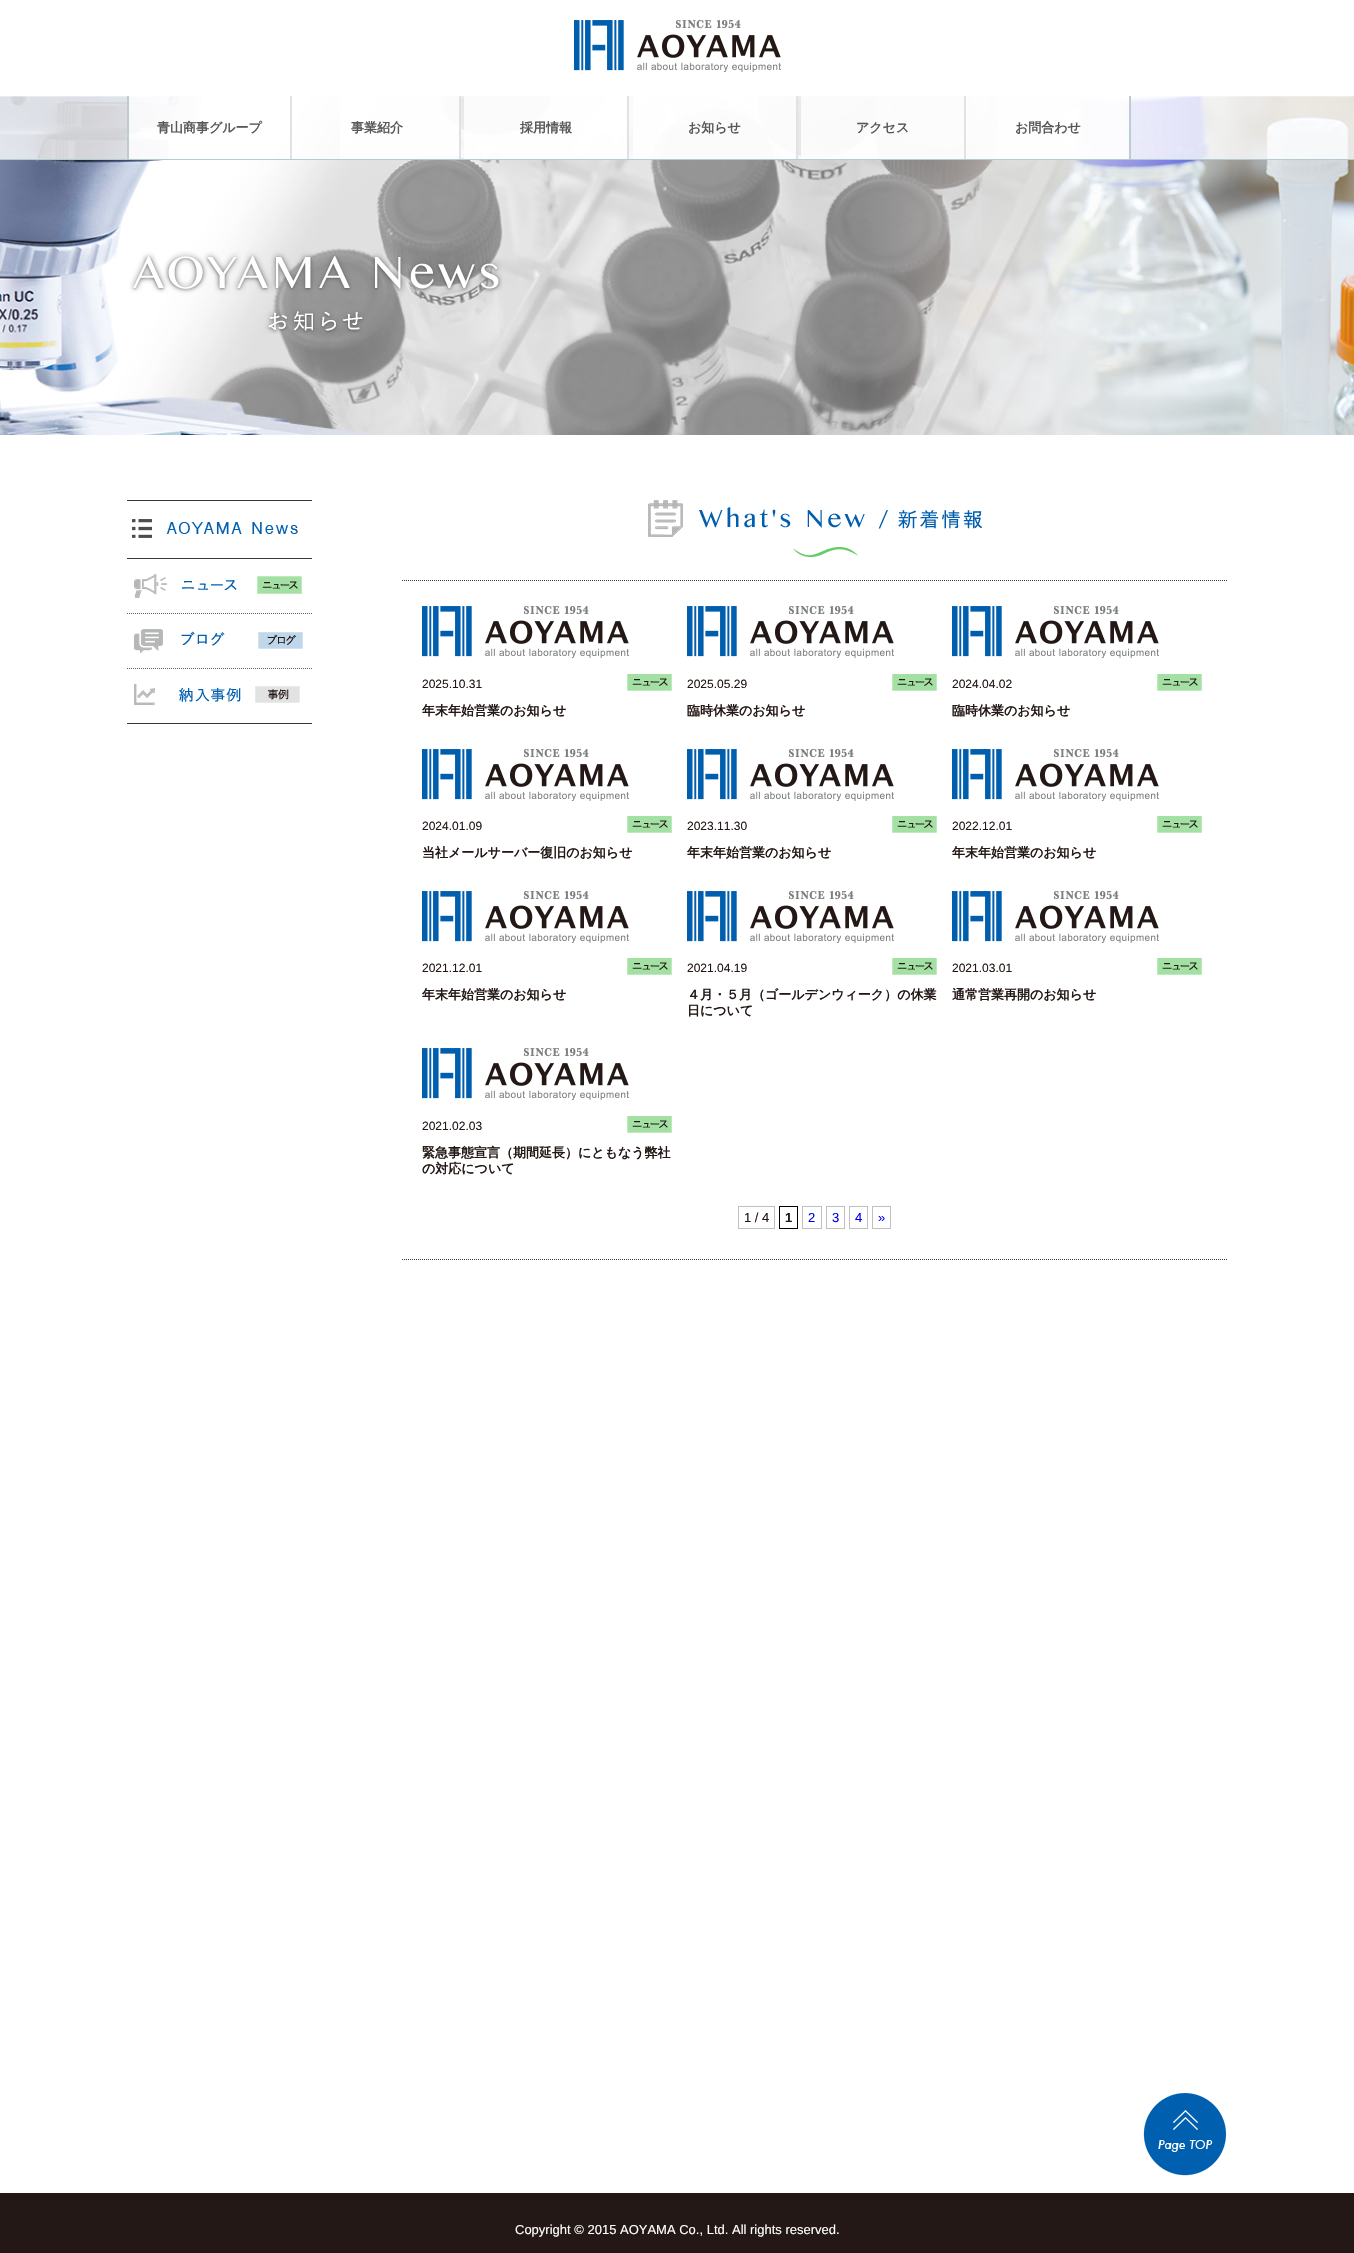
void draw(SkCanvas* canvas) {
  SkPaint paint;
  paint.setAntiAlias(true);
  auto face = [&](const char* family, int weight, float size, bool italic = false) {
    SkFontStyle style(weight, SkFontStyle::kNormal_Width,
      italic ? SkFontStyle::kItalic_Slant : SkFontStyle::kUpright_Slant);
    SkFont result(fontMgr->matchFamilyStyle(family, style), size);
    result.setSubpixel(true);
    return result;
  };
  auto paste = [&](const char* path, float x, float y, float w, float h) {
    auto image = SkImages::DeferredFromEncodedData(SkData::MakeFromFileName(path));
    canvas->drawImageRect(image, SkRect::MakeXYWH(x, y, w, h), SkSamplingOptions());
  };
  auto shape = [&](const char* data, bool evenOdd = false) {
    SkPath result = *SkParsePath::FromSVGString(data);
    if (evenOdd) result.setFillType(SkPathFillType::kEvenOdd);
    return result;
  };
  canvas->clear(0xffffffff);
  paste("img/1.png", 574, 20, 207, 52);
  paste("img/2.png", 0, 96, 1354, 339);
  {
    const struct { float x, y, w, h; SkColor color; } items[] = {
      {0, 96, 1354, 63, 0xccffffff},
      {0, 159, 1354, 1, 0xffb7cad2},
      {290, 96, 2, 63, 0xffdfe3e4},
      {127, 96, 2, 63, 0xffbdccd2},
      {129, 96, 72, 63, 0xccffffff},
      {459, 96, 2, 63, 0xffdfe3e4},
      {340, 96, 119, 63, 0xccffffff},
      {627, 96, 2, 63, 0xffdfe3e4},
      {464, 96, 163, 63, 0xccffffff},
      {796, 96, 2, 63, 0xffdfe3e4},
      {633, 96, 163, 63, 0xccffffff},
      {964, 96, 2, 63, 0xffdfe3e4},
      {801, 96, 163, 63, 0xccffffff},
      {1129, 96, 2, 63, 0xffbdccd2},
      {966, 96, 163, 63, 0xccffffff},
    };
    for (auto [x, y, w, h, color] : items) {
      paint.setColor(color);
      canvas->drawRect(SkRect::MakeXYWH(x, y, w, h), paint);
    }
  }
  paste("img/3.png", 129, 251, 374, 83);
  paint.setColor(0xff3e3431);
  canvas->drawRect(SkRect::MakeXYWH(127, 500, 185, 1), paint);
  canvas->drawRect(SkRect::MakeXYWH(127, 558, 185, 1), paint);
  paste("img/4.png", 132, 519, 166, 19);
  paint.setStroke(true);
  paint.setStrokeWidth(1);
  paint.setColor(0xff675f5d);
  paint.setPathEffect(SkDashPathEffect::Make({{1, 1}}, 0));
  canvas->drawPath(shape("M127 613.5H312"), paint);
  paint.setPathEffect(nullptr);
  paste("img/5.png", 134, 574, 168, 24);
  paint.setPathEffect(SkDashPathEffect::Make({{1, 1}}, 0));
  canvas->drawPath(shape("M127 668.5H312"), paint);
  paint.setPathEffect(nullptr);
  paste("img/6.png", 134, 629, 169, 24);
  paint.setStroke(false);
  paint.setColor(0xff3e3431);
  canvas->drawRect(SkRect::MakeXYWH(127, 723, 185, 1), paint);
  paste("img/7.png", 134, 684, 166, 21);
  paint.setStroke(true);
  paint.setPathEffect(SkDashPathEffect::Make({{1, 1}}, 0));
  canvas->drawPath(shape("M402 580.5H1227"), paint);
  paint.setPathEffect(nullptr);
  paste("img/8.png", 648, 500, 334, 57);
  paint.setPathEffect(SkDashPathEffect::Make({{1, 1}}, 0));
  canvas->drawPath(shape("M402 1259.5H1227"), paint);
  paint.setPathEffect(nullptr);
  paste("img/9.png", 422, 606, 207, 52);
  paste("img/10.png", 627, 674, 45, 17);
  paste("img/9.png", 687, 606, 207, 52);
  paste("img/10.png", 892, 674, 45, 17);
  paste("img/9.png", 952, 606, 207, 52);
  paste("img/10.png", 1157, 674, 45, 17);
  paste("img/9.png", 422, 749, 207, 52);
  paste("img/10.png", 627, 816, 45, 17);
  paste("img/9.png", 687, 749, 207, 52);
  paste("img/10.png", 892, 816, 45, 17);
  paste("img/9.png", 952, 749, 207, 52);
  paste("img/10.png", 1157, 816, 45, 17);
  paste("img/9.png", 422, 891, 207, 52);
  paste("img/10.png", 627, 958, 45, 17);
  paste("img/9.png", 687, 891, 207, 52);
  paste("img/10.png", 892, 958, 45, 17);
  paste("img/9.png", 952, 891, 207, 52);
  paste("img/10.png", 1157, 958, 45, 17);
  paste("img/9.png", 422, 1048, 207, 52);
  paste("img/10.png", 627, 1116, 45, 17);
  paint.setColor(0xffbfbfbf);
  canvas->drawRect(SkRect::MakeXYWH(738.5f, 1206.5f, 36, 22), paint);
  paint.setColor(0xff000000);
  canvas->drawRect(SkRect::MakeXYWH(779.5f, 1206.5f, 18, 22), paint);
  paint.setColor(0xffbfbfbf);
  canvas->drawRect(SkRect::MakeXYWH(802.5f, 1206.5f, 19, 22), paint);
  canvas->drawRect(SkRect::MakeXYWH(826.5f, 1206.5f, 18, 22), paint);
  canvas->drawRect(SkRect::MakeXYWH(849.5f, 1206.5f, 18, 22), paint);
  canvas->drawRect(SkRect::MakeXYWH(872.5f, 1206.5f, 18, 22), paint);
  paint.setStroke(false);
  paint.setColor(0xff231815);
  canvas->drawRect(SkRect::MakeXYWH(0, 2193, 1354, 60), paint);
  paste("img/11.png", 1143, 2093, 84, 83);
  auto f0 = face("WenQuanYi Zen Hei", 700, 13);
  paint.setColor(0xff595757);
  {
    const struct { const char* s; float x, y; } items[] = {
      {"青山商事グループ", 157, 132},
      {"事業紹介", 351, 132},
      {"採用情報", 520, 132},
      {"お知らせ", 688, 132},
      {"アクセス", 856, 132},
      {"お問合わせ", 1015, 132},
    };
    for (auto [s, x, y] : items) {
      canvas->drawString(s, x, y, f0, paint);
    }
  }
  auto f1 = face("Liberation Sans", 400, 12);
  paint.setColor(0xff231815);
  canvas->drawString("2025.10.31", 422, 688, f1, paint);
  canvas->drawString("年末年始営業のお知らせ", 422, 715, f0, paint);
  canvas->drawString("2025.05.29", 687, 688, f1, paint);
  canvas->drawString("臨時休業のお知らせ", 687, 715, f0, paint);
  canvas->drawString("2024.04.02", 952, 688, f1, paint);
  canvas->drawString("臨時休業のお知らせ", 952, 715, f0, paint);
  canvas->drawString("2024.01.09", 422, 830, f1, paint);
  canvas->drawString("当社メールサーバー復旧のお知らせ", 422, 857, f0, paint);
  canvas->drawString("2023.11.30", 687, 830, f1, paint);
  canvas->drawString("年末年始営業のお知らせ", 687, 857, f0, paint);
  canvas->drawString("2022.12.01", 952, 830, f1, paint);
  canvas->drawString("年末年始営業のお知らせ", 952, 857, f0, paint);
  canvas->drawString("2021.12.01", 422, 972, f1, paint);
  canvas->drawString("年末年始営業のお知らせ", 422, 999, f0, paint);
  canvas->drawString("2021.04.19", 687, 972, f1, paint);
  canvas->drawString("４月・５月（ゴールデンウィーク）の休業", 687, 999, f0, paint);
  canvas->drawString("日について", 687, 1015, f0, paint);
  canvas->drawString("2021.03.01", 952, 972, f1, paint);
  canvas->drawString("通常営業再開のお知らせ", 952, 999, f0, paint);
  canvas->drawString("2021.02.03", 422, 1130, f1, paint);
  canvas->drawString("緊急事態宣言（期間延長）にともなう弊社", 422, 1157, f0, paint);
  canvas->drawString("の対応について", 422, 1173, f0, paint);
  auto f2 = face("Liberation Sans", 400, 13);
  canvas->drawString("1 / 4", 744, 1222, f2, paint);
  auto f3 = face("Liberation Sans", 700, 13);
  canvas->drawString("1", 785, 1222, f3, paint);
  paint.setColor(0xff0000ee);
  {
    const struct { const char* s; float x, y; } items[] = {
      {"2", 808, 1222},
      {"3", 832, 1222},
      {"4", 855, 1222},
      {"»", 878, 1222},
    };
    for (auto [s, x, y] : items) {
      canvas->drawString(s, x, y, f2, paint);
    }
  }
  paint.setColor(0xffffffff);
  canvas->drawString("Copyright © 2015 AOYAMA Co., Ltd. All rights reserved.", 515, 2234, f2, paint);
}
